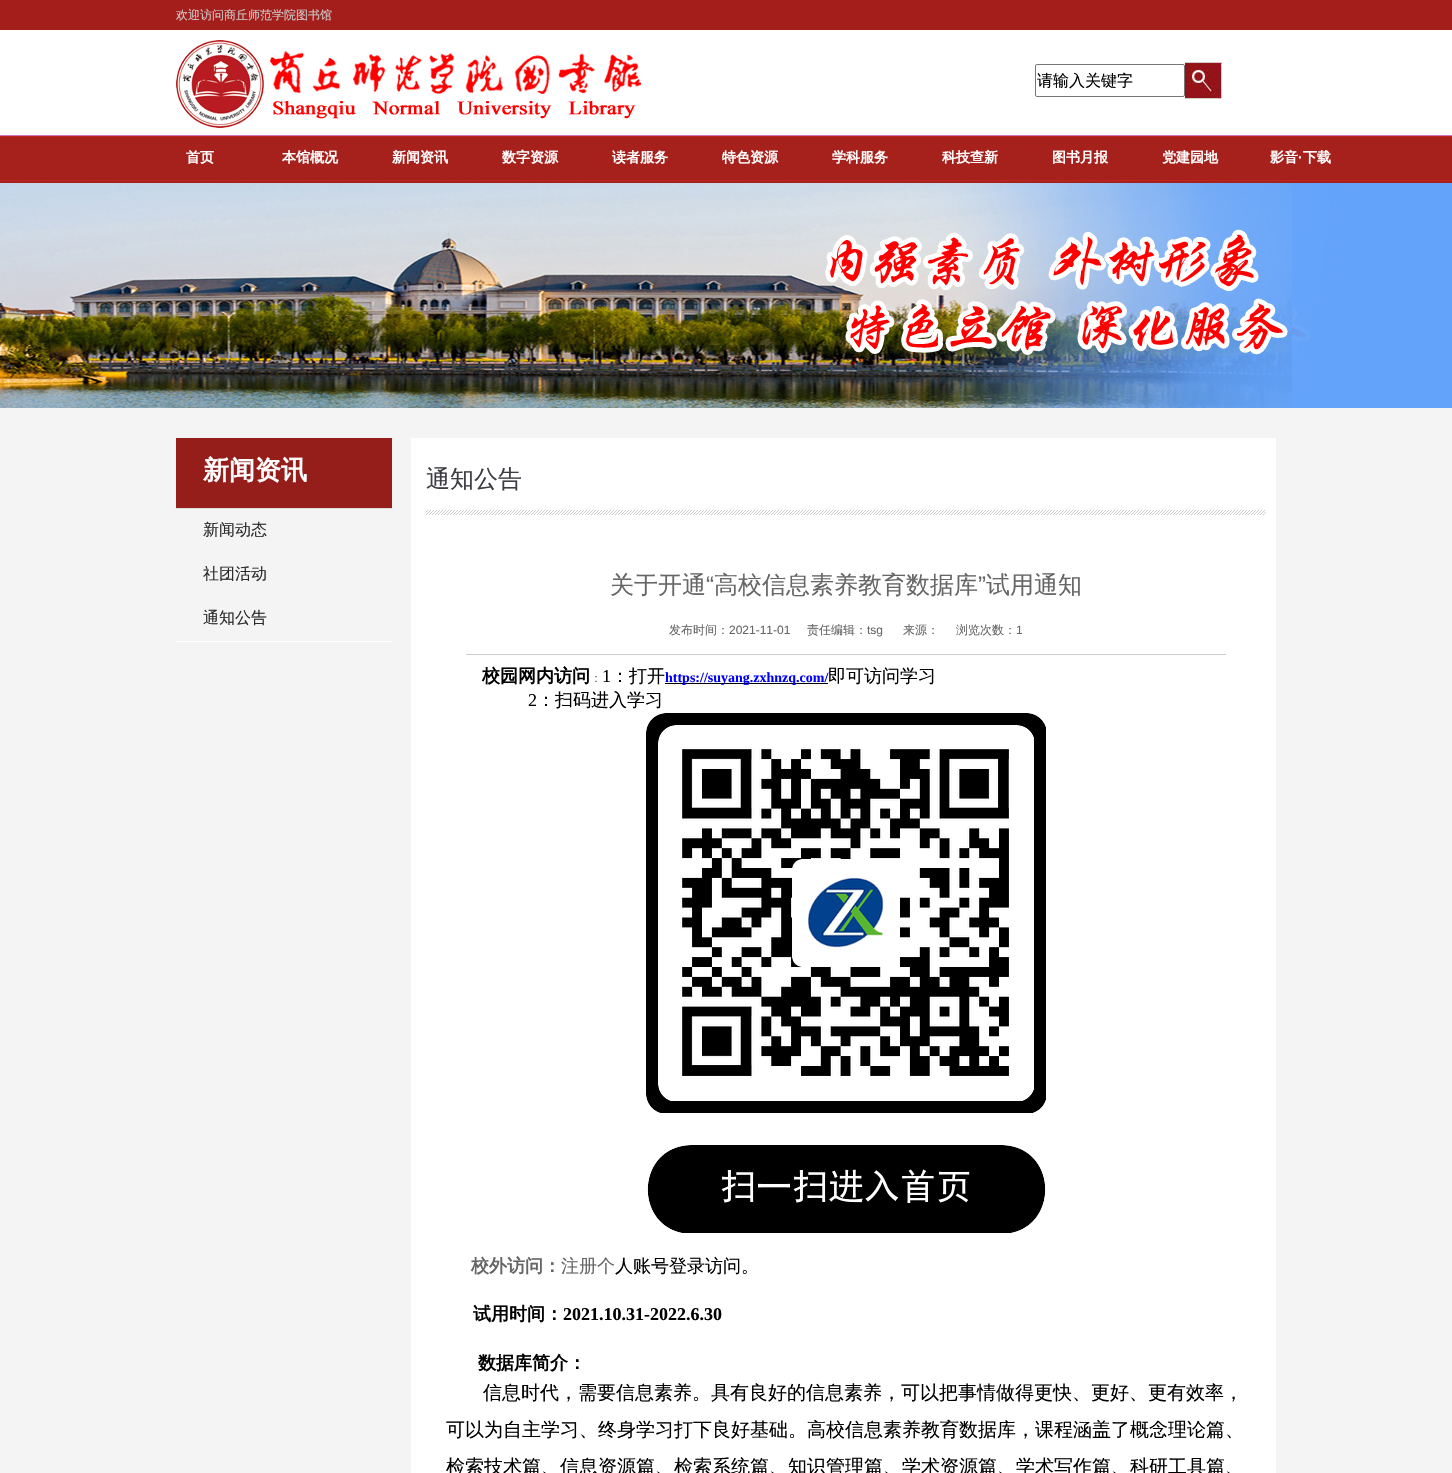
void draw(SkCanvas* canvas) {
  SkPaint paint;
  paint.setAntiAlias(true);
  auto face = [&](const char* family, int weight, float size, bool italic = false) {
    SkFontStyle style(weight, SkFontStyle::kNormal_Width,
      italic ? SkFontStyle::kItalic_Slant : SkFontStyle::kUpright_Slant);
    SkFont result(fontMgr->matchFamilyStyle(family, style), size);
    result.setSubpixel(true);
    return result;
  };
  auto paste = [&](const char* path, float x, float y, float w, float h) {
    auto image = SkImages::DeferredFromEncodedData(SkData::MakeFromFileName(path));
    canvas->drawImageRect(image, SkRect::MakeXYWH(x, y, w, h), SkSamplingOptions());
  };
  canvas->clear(0xffffffff);
  paint.setColor(0xffa41f1c);
  canvas->drawRect(SkRect::MakeXYWH(0, 0, 1452, 30), paint);
  paint.setColor(0xffc876c0);
  canvas->drawRect(SkRect::MakeXYWH(0, 135, 1452, 1), paint);
  paste("img/1.png", 176, 40, 465, 88);
  paint.setStroke(true);
  paint.setStrokeWidth(1);
  paint.setColor(0xff767676);
  canvas->drawRoundRect(SkRect::MakeXYWH(1035.5f, 64.5f, 149, 32), 1.5f, 1.5f, paint);
  paste("img/2.png", 1185, 62, 37, 37);
  paint.setStroke(false);
  {
    const struct { float x, y, w, h; SkColor color; } items[] = {
      {0, 181, 1452, 2, 0xffa6211c},
      {0, 137, 1452, 43, 0xffa6211c},
      {0, 136, 1452, 1, 0xffbd2420},
      {0, 180, 1452, 1, 0xffbd2420},
      {0, 408, 1452, 1065, 0xfff4f4f4},
    };
    for (auto [x, y, w, h, color] : items) {
      paint.setColor(color);
      canvas->drawRect(SkRect::MakeXYWH(x, y, w, h), paint);
    }
  }
  paste("img/3.png", 0, 183, 1452, 225);
  {
    const struct { float x, y, w, h; SkColor color; } items[] = {
      {176, 438, 216, 70, 0xff951d1a},
      {176, 508, 216, 1, 0xffdddddd},
      {176, 641, 216, 1, 0xffffffff},
      {411, 438, 865, 1035, 0xffffffff},
    };
    for (auto [x, y, w, h, color] : items) {
      paint.setColor(color);
      canvas->drawRect(SkRect::MakeXYWH(x, y, w, h), paint);
    }
  }
  paste("img/4.png", 426, 510, 840, 5);
  paint.setColor(0xffcccccc);
  canvas->drawRect(SkRect::MakeXYWH(466, 654, 760, 1), paint);
  paint.setColor(0xff000000);
  canvas->drawRect(SkRect::MakeXYWH(665, 683, 163, 1), paint);
  paste("img/5.png", 646, 713, 400, 520);
  auto f0 = face("WenQuanYi Zen Hei", 500, 12);
  paint.setColor(0xffcbc9c9);
  canvas->drawString("欢迎访问商丘师范学院图书馆", 176, 19, f0, paint);
  auto f1 = face("WenQuanYi Zen Hei", 500, 16);
  paint.setColor(0xff000000);
  canvas->drawString("请输入关键字", 1037, 86, f1, paint);
  auto f2 = face("WenQuanYi Zen Hei", 700, 14);
  paint.setColor(0xffffffff);
  {
    const struct { const char* s; float x, y; } items[] = {
      {"首页", 186, 162},
      {"本馆概况", 282, 162},
      {"新闻资讯", 392, 162},
      {"数字资源", 502, 162},
      {"读者服务", 612, 162},
      {"特色资源", 722, 162},
      {"学科服务", 832, 162},
      {"科技查新", 942, 162},
      {"图书月报", 1052, 162},
      {"党建园地", 1162, 162},
      {"影音", 1270, 162},
    };
    for (auto [s, x, y] : items) {
      canvas->drawString(s, x, y, f2, paint);
    }
  }
  auto f3 = face("Liberation Sans", 700, 14);
  canvas->drawString("·", 1298, 162, f3, paint);
  canvas->drawString("下载", 1303, 162, f2, paint);
  auto f4 = face("WenQuanYi Zen Hei", 700, 26);
  canvas->drawString("新闻资讯", 203, 479, f4, paint);
  paint.setColor(0xff2a2a2a);
  {
    const struct { const char* s; float x, y; } items[] = {
      {"新闻动态", 203, 535},
      {"社团活动", 203, 579},
      {"通知公告", 203, 623},
    };
    for (auto [s, x, y] : items) {
      canvas->drawString(s, x, y, f1, paint);
    }
  }
  auto f5 = face("WenQuanYi Zen Hei", 500, 24);
  paint.setColor(0xff3d3c43);
  canvas->drawString("通知公告", 426, 487, f5, paint);
  paint.setColor(0xff666666);
  canvas->drawString("关于开通", 610, 593, f5, paint);
  auto f6 = face("Liberation Sans", 400, 24);
  canvas->drawString("“", 706, 593, f6, paint);
  canvas->drawString("高校信息素养教育数据库", 714, 593, f5, paint);
  canvas->drawString("”", 978, 593, f6, paint);
  canvas->drawString("试用通知", 986, 593, f5, paint);
  canvas->drawString("发布时间：", 669, 634, f0, paint);
  auto f7 = face("Liberation Sans", 400, 12);
  canvas->drawString("2021-11-01", 729, 634, f7, paint);
  canvas->drawString("责任编辑：", 807, 634, f0, paint);
  canvas->drawString("tsg", 867, 634, f7, paint);
  canvas->drawString("来源：", 903, 634, f0, paint);
  canvas->drawString("浏览次数：", 956, 634, f0, paint);
  canvas->drawString("1", 1016, 634, f7, paint);
  auto f8 = face("WenQuanYi Zen Hei", 700, 18);
  paint.setColor(0xff000000);
  canvas->drawString("校园网内访问", 482, 682, f8, paint);
  paint.setColor(0xff666666);
  canvas->drawString("：", 590, 682, f0, paint);
  auto f9 = face("Liberation Serif", 400, 18);
  paint.setColor(0xff000000);
  canvas->drawString("1", 602, 682, f9, paint);
  auto f10 = face("WenQuanYi Zen Hei", 500, 18);
  canvas->drawString("：打开", 611, 682, f10, paint);
  auto f11 = face("Liberation Serif", 700, 14);
  paint.setColor(0xff0000ff);
  canvas->drawString("https://suyang.zxhnzq.com/", 665, 682, f11, paint);
  paint.setColor(0xff000000);
  canvas->drawString("即可访问学习", 828, 682, f10, paint);
  canvas->drawString("2", 528, 706, f9, paint);
  canvas->drawString("：扫码进入学习", 537, 706, f10, paint);
  paint.setColor(0xff666666);
  canvas->drawString("校外访问：", 471, 1272, f8, paint);
  canvas->drawString("注册个", 561, 1272, f10, paint);
  paint.setColor(0xff000000);
  canvas->drawString("人账号登录访问。", 615, 1272, f10, paint);
  canvas->drawString("试用时间：", 473, 1320, f8, paint);
  auto f12 = face("Liberation Serif", 700, 18);
  canvas->drawString("2021.10.31-2022.6.30", 563, 1320, f12, paint);
  canvas->drawString("数据库简介：", 478, 1369, f8, paint);
  auto f13 = face("WenQuanYi Zen Hei", 500, 19);
  {
    const struct { const char* s; float x, y; } items[] = {
      {"信息时代，需要信息素养。具有良好的信息素养，可以把事情做得更快、更好、更有效率，", 483, 1399},
      {"可以为自主学习、终身学习打下良好基础。高校信息素养教育数据库，课程涵盖了概念理论篇、", 446, 1436},
      {"检索技术篇、信息资源篇、检索系统篇、知识管理篇、学术资源篇、学术写作篇、科研工具篇、", 446, 1473},
    };
    for (auto [s, x, y] : items) {
      canvas->drawString(s, x, y, f13, paint);
    }
  }
}
